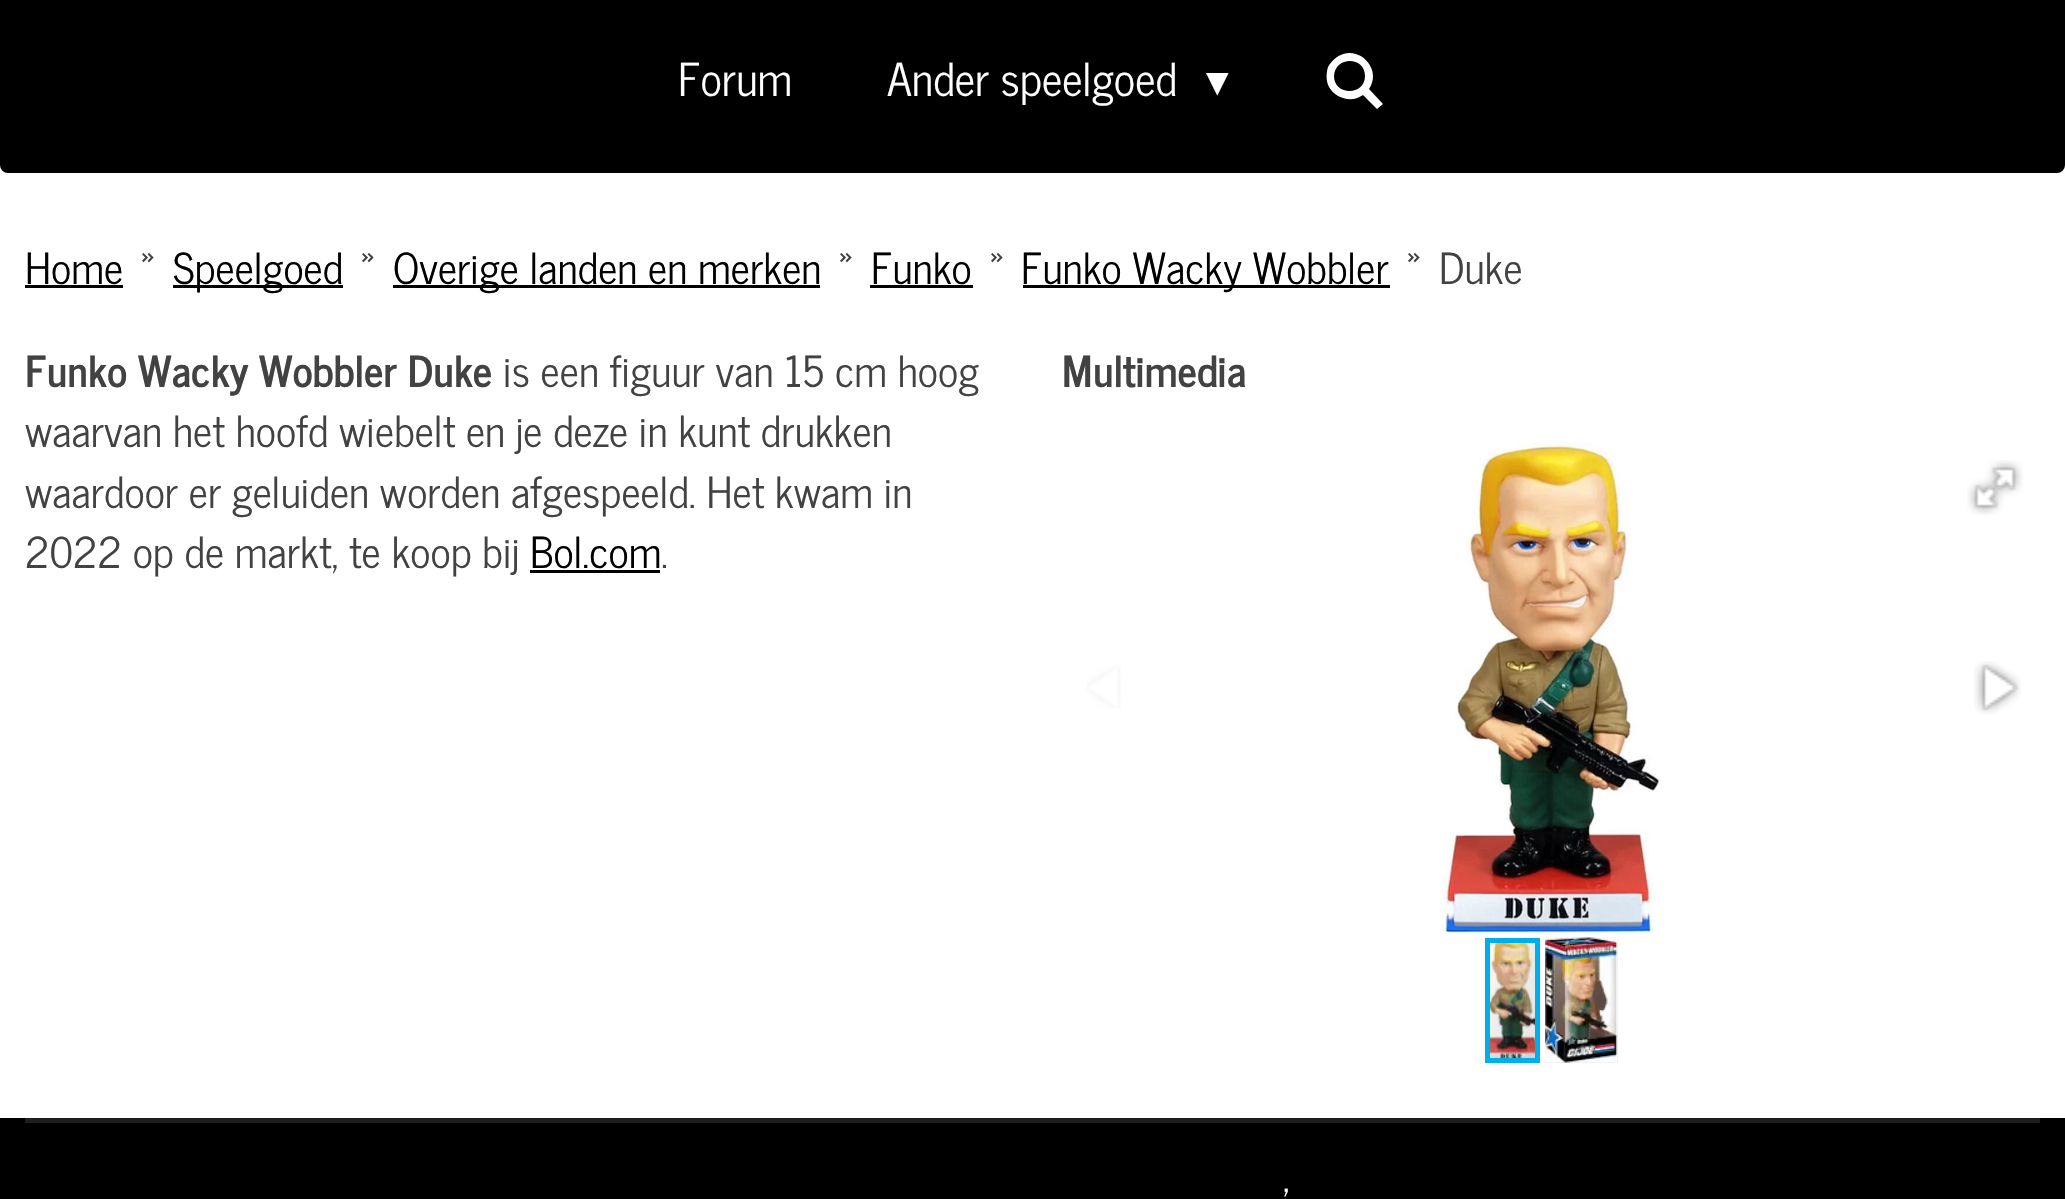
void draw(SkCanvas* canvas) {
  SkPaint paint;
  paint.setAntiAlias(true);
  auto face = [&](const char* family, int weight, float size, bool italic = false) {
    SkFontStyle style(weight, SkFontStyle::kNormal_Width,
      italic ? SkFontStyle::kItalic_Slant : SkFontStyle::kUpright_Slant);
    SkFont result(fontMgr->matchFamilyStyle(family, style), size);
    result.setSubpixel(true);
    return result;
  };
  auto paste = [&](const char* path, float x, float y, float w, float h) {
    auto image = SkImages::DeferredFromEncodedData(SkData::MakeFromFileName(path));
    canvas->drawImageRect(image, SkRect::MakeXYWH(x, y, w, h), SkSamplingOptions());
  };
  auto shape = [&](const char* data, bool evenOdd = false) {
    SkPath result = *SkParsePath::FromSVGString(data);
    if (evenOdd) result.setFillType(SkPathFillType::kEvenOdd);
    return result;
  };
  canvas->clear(0xffffffff);
  paint.setColor(0xff000000);
  canvas->drawRoundRect(SkRect::MakeXYWH(0, -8, 2065, 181), 8, 8, paint);
  paint.setColor(0xffffffff);
  canvas->drawPath(shape("M1369 89L1383 104L1377 109L1363 95C1352 103 1336 99 1329 87C1326 81 1326 74 1328 67C1330 63 1333 60 1337 57C1358 43 1383 69 1369 89ZM1365 76C1365 56 1335 56 1334 76C1334 96 1365 96 1365 76Z"), paint);
  {
    const struct { float x, y, w, h; SkColor color; } items[] = {
      {25, 285, 98, 3, 0xff000000},
      {173, 285, 170, 3, 0xff000000},
      {393, 285, 427, 3, 0xff000000},
      {870, 285, 103, 3, 0xff000000},
      {1023, 285, 367, 3, 0xff000000},
      {530, 570, 130, 3, 0xff000000},
    };
    for (auto [x, y, w, h, color] : items) {
      paint.setColor(color);
      canvas->drawRect(SkRect::MakeXYWH(x, y, w, h), paint);
    }
  }
  paste("img/1.png", 1442, 442, 218, 491);
  paste("img/2.png", 1967, 460, 56, 55);
  paste("img/3.png", 1086, 666, 35, 43);
  paste("img/4.png", 1974, 661, 47, 54);
  paste("img/5.png", 1485, 937, 55, 121);
  paint.setColor(0xffe6e6e6);
  canvas->drawRect(SkRect::MakeXYWH(1545, 938, 73, 125), paint);
  paste("img/6.png", 1545, 937, 73, 126);
  paint.setStroke(true);
  paint.setStrokeWidth(5);
  paint.setColor(0xff00afea);
  canvas->drawRect(SkRect::MakeXYWH(1487.5f, 940.5f, 50, 120), paint);
  paint.setStroke(false);
  paint.setColor(0xff000000);
  canvas->drawRect(SkRect::MakeXYWH(0, 1118, 2065, 81), paint);
  paint.setColor(0xff1e1e1e);
  canvas->drawRect(SkRect::MakeXYWH(25, 1118, 2015, 5), paint);
  auto f0 = face("News Cycle", 400, 45);
  paint.setColor(0xffffffff);
  canvas->drawString("Forum", 678, 96, f0, paint);
  canvas->drawString("Ander speelgoed", 887, 96, f0, paint);
  auto f1 = face("DejaVu Sans", 400, 45);
  canvas->drawString("▾", 1206, 96, f1, paint);
  auto f2 = face("News Cycle", 400, 42.5f);
  paint.setColor(0xff000000);
  canvas->drawString("Home", 25, 284, f2, paint);
  paint.setColor(0xff424242);
  canvas->drawString("»", 140, 284, f2, paint);
  paint.setColor(0xff000000);
  canvas->drawString("Speelgoed", 173, 284, f2, paint);
  paint.setColor(0xff424242);
  canvas->drawString("»", 360, 284, f2, paint);
  paint.setColor(0xff000000);
  canvas->drawString("Overige landen en merken", 393, 284, f2, paint);
  paint.setColor(0xff424242);
  canvas->drawString("»", 838, 284, f2, paint);
  paint.setColor(0xff000000);
  canvas->drawString("Funko", 871, 284, f2, paint);
  paint.setColor(0xff424242);
  canvas->drawString("»", 989, 284, f2, paint);
  paint.setColor(0xff000000);
  canvas->drawString("Funko Wacky Wobbler", 1021, 284, f2, paint);
  paint.setColor(0xff424242);
  canvas->drawString("»", 1406, 284, f2, paint);
  canvas->drawString("Duke", 1439, 284, f2, paint);
  auto f3 = face("News Cycle", 700, 42.5f);
  canvas->drawString("Funko Wacky Wobbler Duke", 25, 387, f3, paint);
  {
    const struct { const char* s; float x, y; } items[] = {
      {"is een figuur van 15 cm hoog", 503, 387},
      {"waarvan het hoofd wiebelt en je deze in kunt drukken", 25, 447},
      {"waardoor er geluiden worden afgespeeld. Het kwam in", 25, 508},
      {"2022 op de markt, te koop bij", 25, 568},
    };
    for (auto [s, x, y] : items) {
      canvas->drawString(s, x, y, f2, paint);
    }
  }
  paint.setColor(0xff000000);
  canvas->drawString("Bol.com", 530, 568, f2, paint);
  paint.setColor(0xff424242);
  canvas->drawString(".", 661, 568, f2, paint);
  canvas->drawString("Multimedia", 1062, 387, f3, paint);
  auto f4 = face("News Cycle", 400, 40);
  paint.setColor(0xffffffff);
  canvas->drawString("'", 1283, 1217, f4, paint);
}
